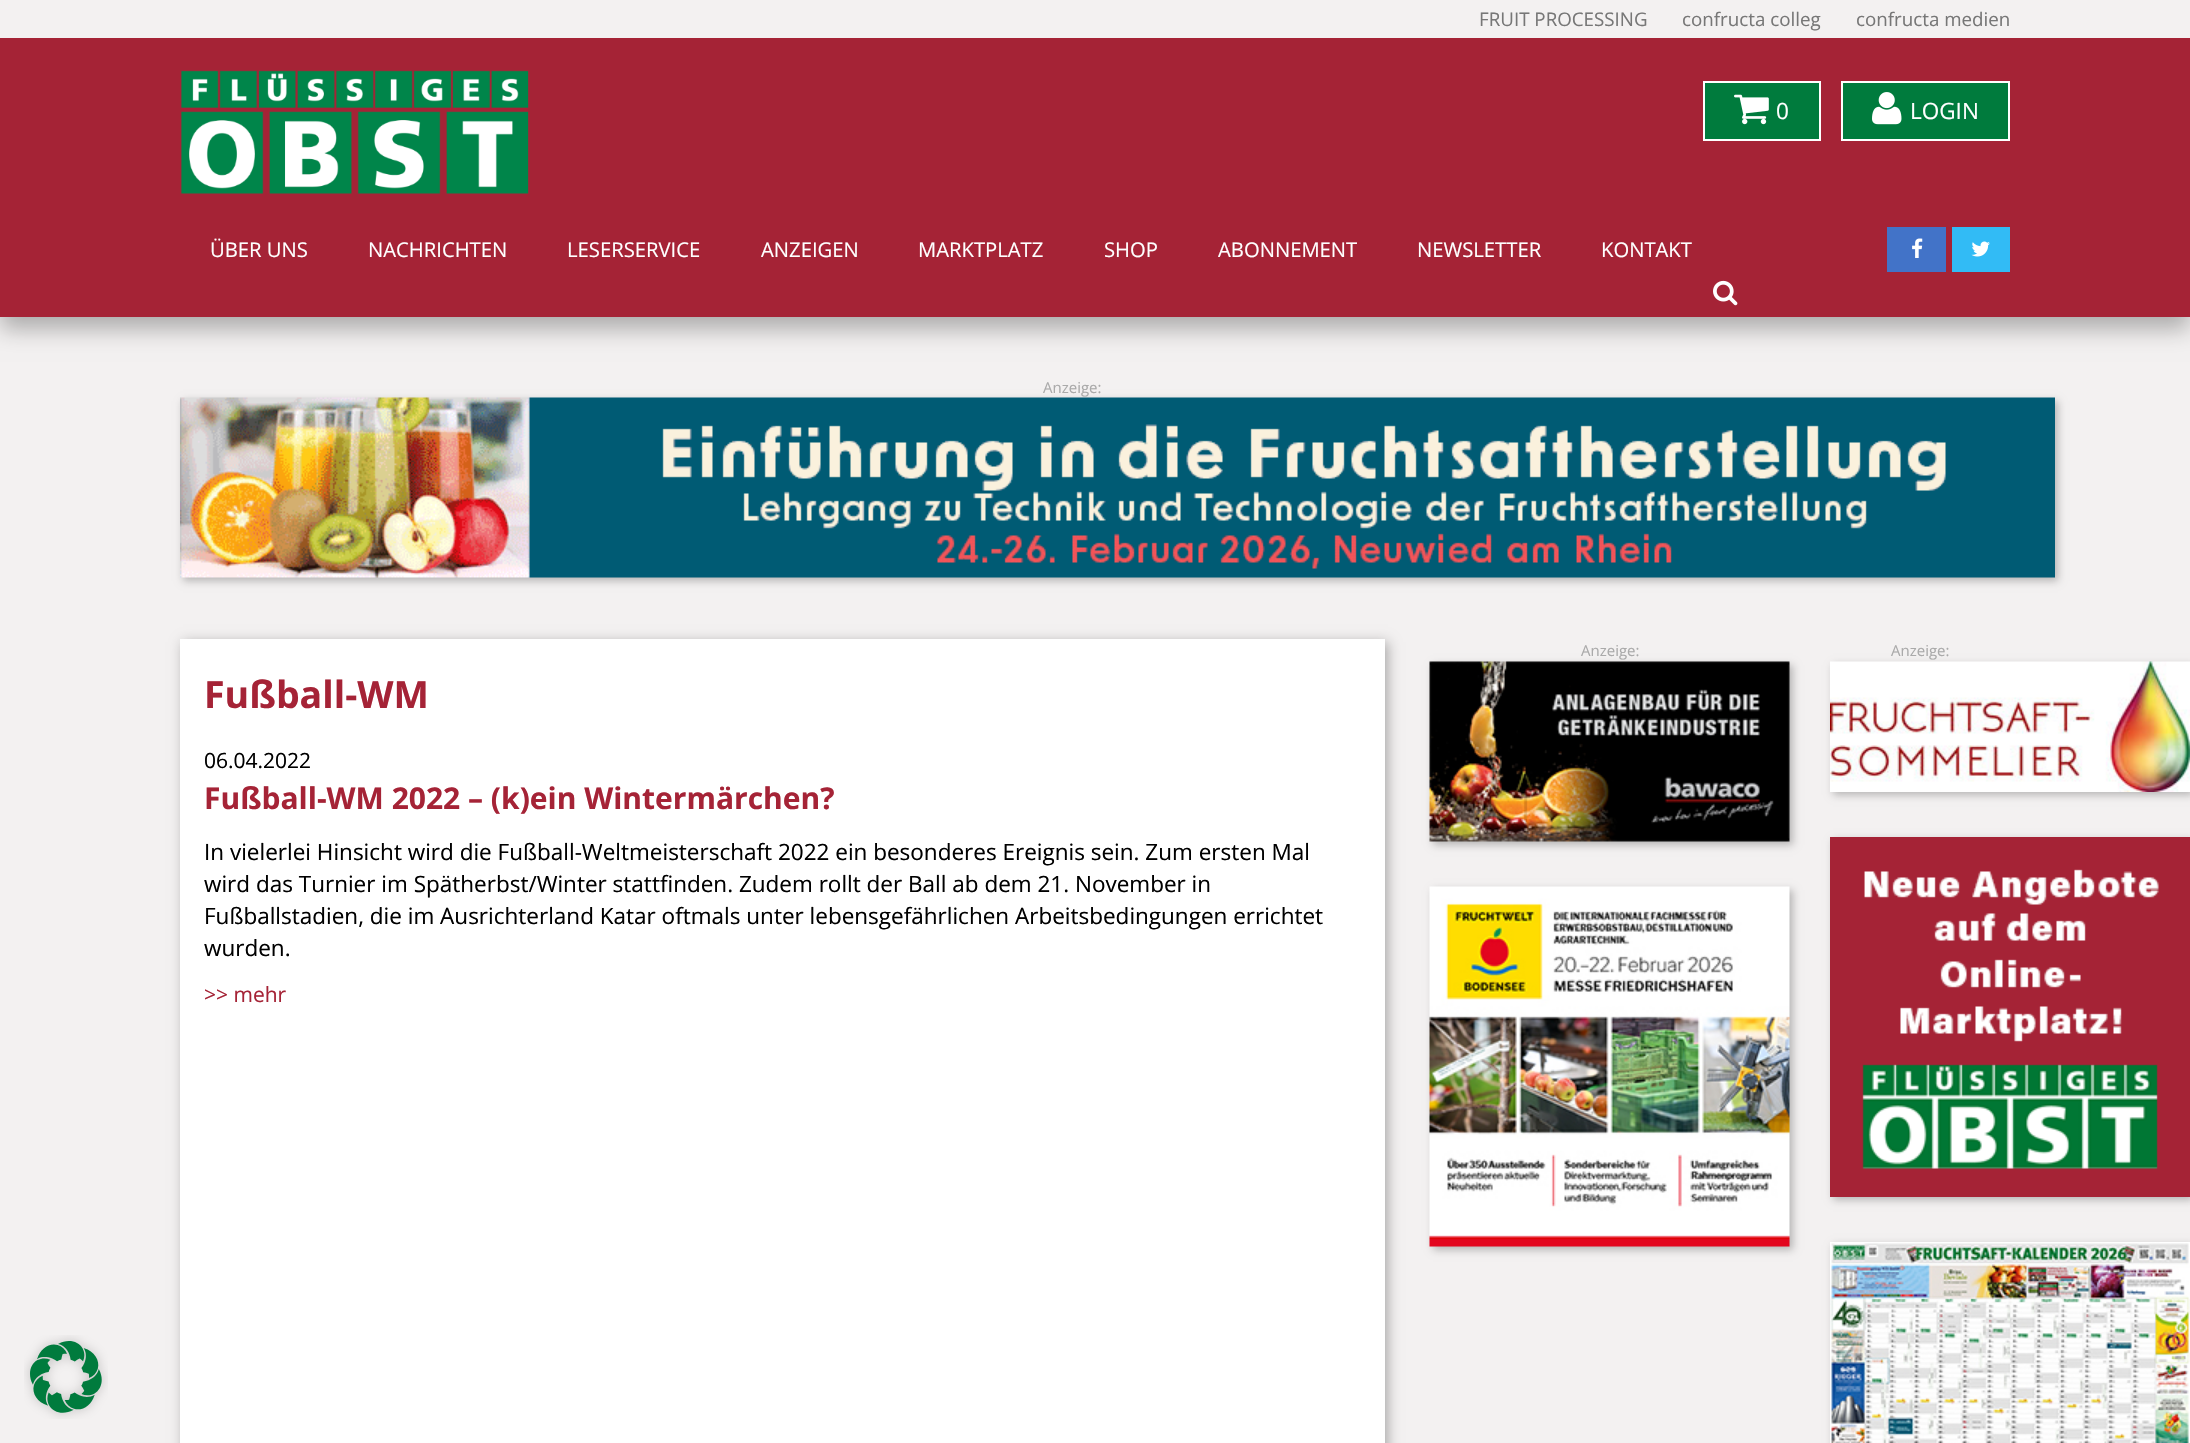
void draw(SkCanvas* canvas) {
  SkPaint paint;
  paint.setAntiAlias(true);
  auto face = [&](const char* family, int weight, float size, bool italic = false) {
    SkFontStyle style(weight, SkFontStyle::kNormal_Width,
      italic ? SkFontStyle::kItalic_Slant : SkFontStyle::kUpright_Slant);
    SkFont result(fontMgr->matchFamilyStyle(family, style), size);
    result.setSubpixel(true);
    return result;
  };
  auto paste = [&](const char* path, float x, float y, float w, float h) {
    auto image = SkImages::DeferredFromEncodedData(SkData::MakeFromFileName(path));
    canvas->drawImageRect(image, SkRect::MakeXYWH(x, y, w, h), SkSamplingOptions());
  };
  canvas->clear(0xfff3f1f1);
  paint.setColor(0x4a000000);
  paint.setMaskFilter(SkMaskFilter::MakeBlur(kNormal_SkBlurStyle, 11));
  canvas->drawRect(SkRect::MakeXYWH(0, 12, 2190, 317), paint);
  paint.setMaskFilter(nullptr);
  paint.setColor(0xffa52336);
  canvas->drawRect(SkRect::MakeXYWH(0, 38, 2190, 279), paint);
  paint.setColor(0xfff3f1f1);
  canvas->drawRect(SkRect::MakeXYWH(0, 0, 2190, 38), paint);
  paste("img/1.png", 181, 70, 348, 124);
  paint.setColor(0xff007b3d);
  canvas->drawRect(SkRect::MakeXYWH(1704, 82, 116, 58), paint);
  paint.setStroke(true);
  paint.setStrokeWidth(2);
  paint.setColor(0xffffffff);
  canvas->drawRect(SkRect::MakeXYWH(1704, 82, 116, 58), paint);
  paste("img/2.png", 1734, 94, 35, 31);
  paint.setStroke(false);
  paint.setColor(0xff007b3d);
  canvas->drawRect(SkRect::MakeXYWH(1842, 82, 167, 58), paint);
  paint.setStroke(true);
  paint.setColor(0xffffffff);
  canvas->drawRect(SkRect::MakeXYWH(1842, 82, 167, 58), paint);
  paste("img/3.png", 1872, 92, 30, 33);
  paste("img/4.png", 1713, 280, 25, 26);
  paint.setStroke(false);
  paint.setColor(0xff4273c8);
  canvas->drawRect(SkRect::MakeXYWH(1887, 227, 59, 45), paint);
  paste("img/5.png", 1912, 238, 11, 20);
  paint.setColor(0xff32bbf5);
  canvas->drawRect(SkRect::MakeXYWH(1952, 227, 58, 45), paint);
  paste("img/6.png", 1971, 241, 19, 16);
  paint.setColor(0x40000000);
  paint.setMaskFilter(SkMaskFilter::MakeBlur(kNormal_SkBlurStyle, 4));
  canvas->drawRect(SkRect::MakeXYWH(183, 401, 1875, 180), paint);
  paint.setMaskFilter(nullptr);
  paste("img/7.png", 180, 397, 1875, 181);
  paint.setMaskFilter(SkMaskFilter::MakeBlur(kNormal_SkBlurStyle, 4));
  canvas->drawRect(SkRect::MakeXYWH(1433, 665, 360, 180), paint);
  paint.setMaskFilter(nullptr);
  paste("img/8.png", 1429, 661, 361, 181);
  paint.setMaskFilter(SkMaskFilter::MakeBlur(kNormal_SkBlurStyle, 4));
  canvas->drawRect(SkRect::MakeXYWH(1433, 890, 360, 360), paint);
  paint.setMaskFilter(nullptr);
  paste("img/9.png", 1429, 886, 361, 361);
  paint.setMaskFilter(SkMaskFilter::MakeBlur(kNormal_SkBlurStyle, 4));
  canvas->drawRect(SkRect::MakeXYWH(1833, 665, 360, 130), paint);
  paint.setMaskFilter(nullptr);
  paste("img/10.png", 1830, 661, 360, 131);
  paint.setMaskFilter(SkMaskFilter::MakeBlur(kNormal_SkBlurStyle, 4));
  canvas->drawRect(SkRect::MakeXYWH(1833, 840, 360, 360), paint);
  paint.setMaskFilter(nullptr);
  paste("img/11.png", 1830, 837, 360, 360);
  paint.setMaskFilter(SkMaskFilter::MakeBlur(kNormal_SkBlurStyle, 4));
  canvas->drawRect(SkRect::MakeXYWH(1833, 1245, 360, 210), paint);
  paint.setMaskFilter(nullptr);
  paste("img/12.png", 1830, 1242, 360, 201);
  paint.setColor(0x4d000000);
  paint.setMaskFilter(SkMaskFilter::MakeBlur(kNormal_SkBlurStyle, 6));
  canvas->drawRect(SkRect::MakeXYWH(183, 642, 1205, 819), paint);
  paint.setMaskFilter(nullptr);
  paint.setColor(0xffffffff);
  canvas->drawRect(SkRect::MakeXYWH(180, 639, 1205, 804), paint);
  paste("img/13.png", 24, 1335, 84, 84);
  auto f0 = face("Open Sans", 400, 18.75f);
  paint.setColor(0xff777777);
  {
    const struct { const char* s; float x, y; } items[] = {
      {"FRUIT PROCESSING", 1479, 26},
      {"confructa colleg", 1682, 26},
      {"confructa medien", 1856, 26},
    };
    for (auto [s, x, y] : items) {
      canvas->drawString(s, x, y, f0, paint);
    }
  }
  auto f1 = face("Open Sans", 400, 22.5f);
  paint.setColor(0xffffffff);
  canvas->drawString("0", 1776, 119, f1, paint);
  canvas->drawString("LOGIN", 1910, 119, f1, paint);
  auto f2 = face("Open Sans", 400, 20.25f);
  {
    const struct { const char* s; float x, y; } items[] = {
      {"ÜBER UNS", 210, 257},
      {"NACHRICHTEN", 368, 257},
      {"LESERSERVICE", 567, 257},
      {"ANZEIGEN", 761, 257},
      {"MARKTPLATZ", 918, 257},
      {"SHOP", 1104, 257},
      {"ABONNEMENT", 1218, 257},
      {"NEWSLETTER", 1417, 257},
      {"KONTAKT", 1601, 257},
    };
    for (auto [s, x, y] : items) {
      canvas->drawString(s, x, y, f2, paint);
    }
  }
  auto f3 = face("Open Sans", 400, 15);
  paint.setColor(0xffaaaaaa);
  {
    const struct { const char* s; float x, y; } items[] = {
      {"Anzeige:", 1043, 393},
      {"Anzeige:", 1581, 656},
      {"Anzeige:", 1891, 656},
    };
    for (auto [s, x, y] : items) {
      canvas->drawString(s, x, y, f3, paint);
    }
  }
  auto f4 = face("Open Sans", 700, 37.5f);
  paint.setColor(0xffa52336);
  canvas->drawString("Fußball-WM", 204, 708, f4, paint);
  auto f5 = face("Open Sans", 400, 21);
  paint.setColor(0xff000000);
  canvas->drawString("06.04.2022", 204, 768, f5, paint);
  auto f6 = face("Open Sans", 700, 30);
  paint.setColor(0xffa52336);
  canvas->drawString("Fußball-WM 2022 – (k)ein Wintermärchen?", 204, 809, f6, paint);
  paint.setColor(0xff000000);
  {
    const struct { const char* s; float x, y; } items[] = {
      {"In vielerlei Hinsicht wird die Fußball-Weltmeisterschaft 2022 ein besonderes Ereignis sein. Zum ersten Mal", 204, 860},
      {"wird das Turnier im Spätherbst/Winter stattfinden. Zudem rollt der Ball ab dem 21. November in", 204, 892},
      {"Fußballstadien, die im Ausrichterland Katar oftmals unter lebensgefährlichen Arbeitsbedingungen errichtet", 204, 924},
      {"wurden.", 204, 956},
    };
    for (auto [s, x, y] : items) {
      canvas->drawString(s, x, y, f1, paint);
    }
  }
  paint.setColor(0xffa52336);
  canvas->drawString(">> mehr", 204, 1002, f5, paint);
}
